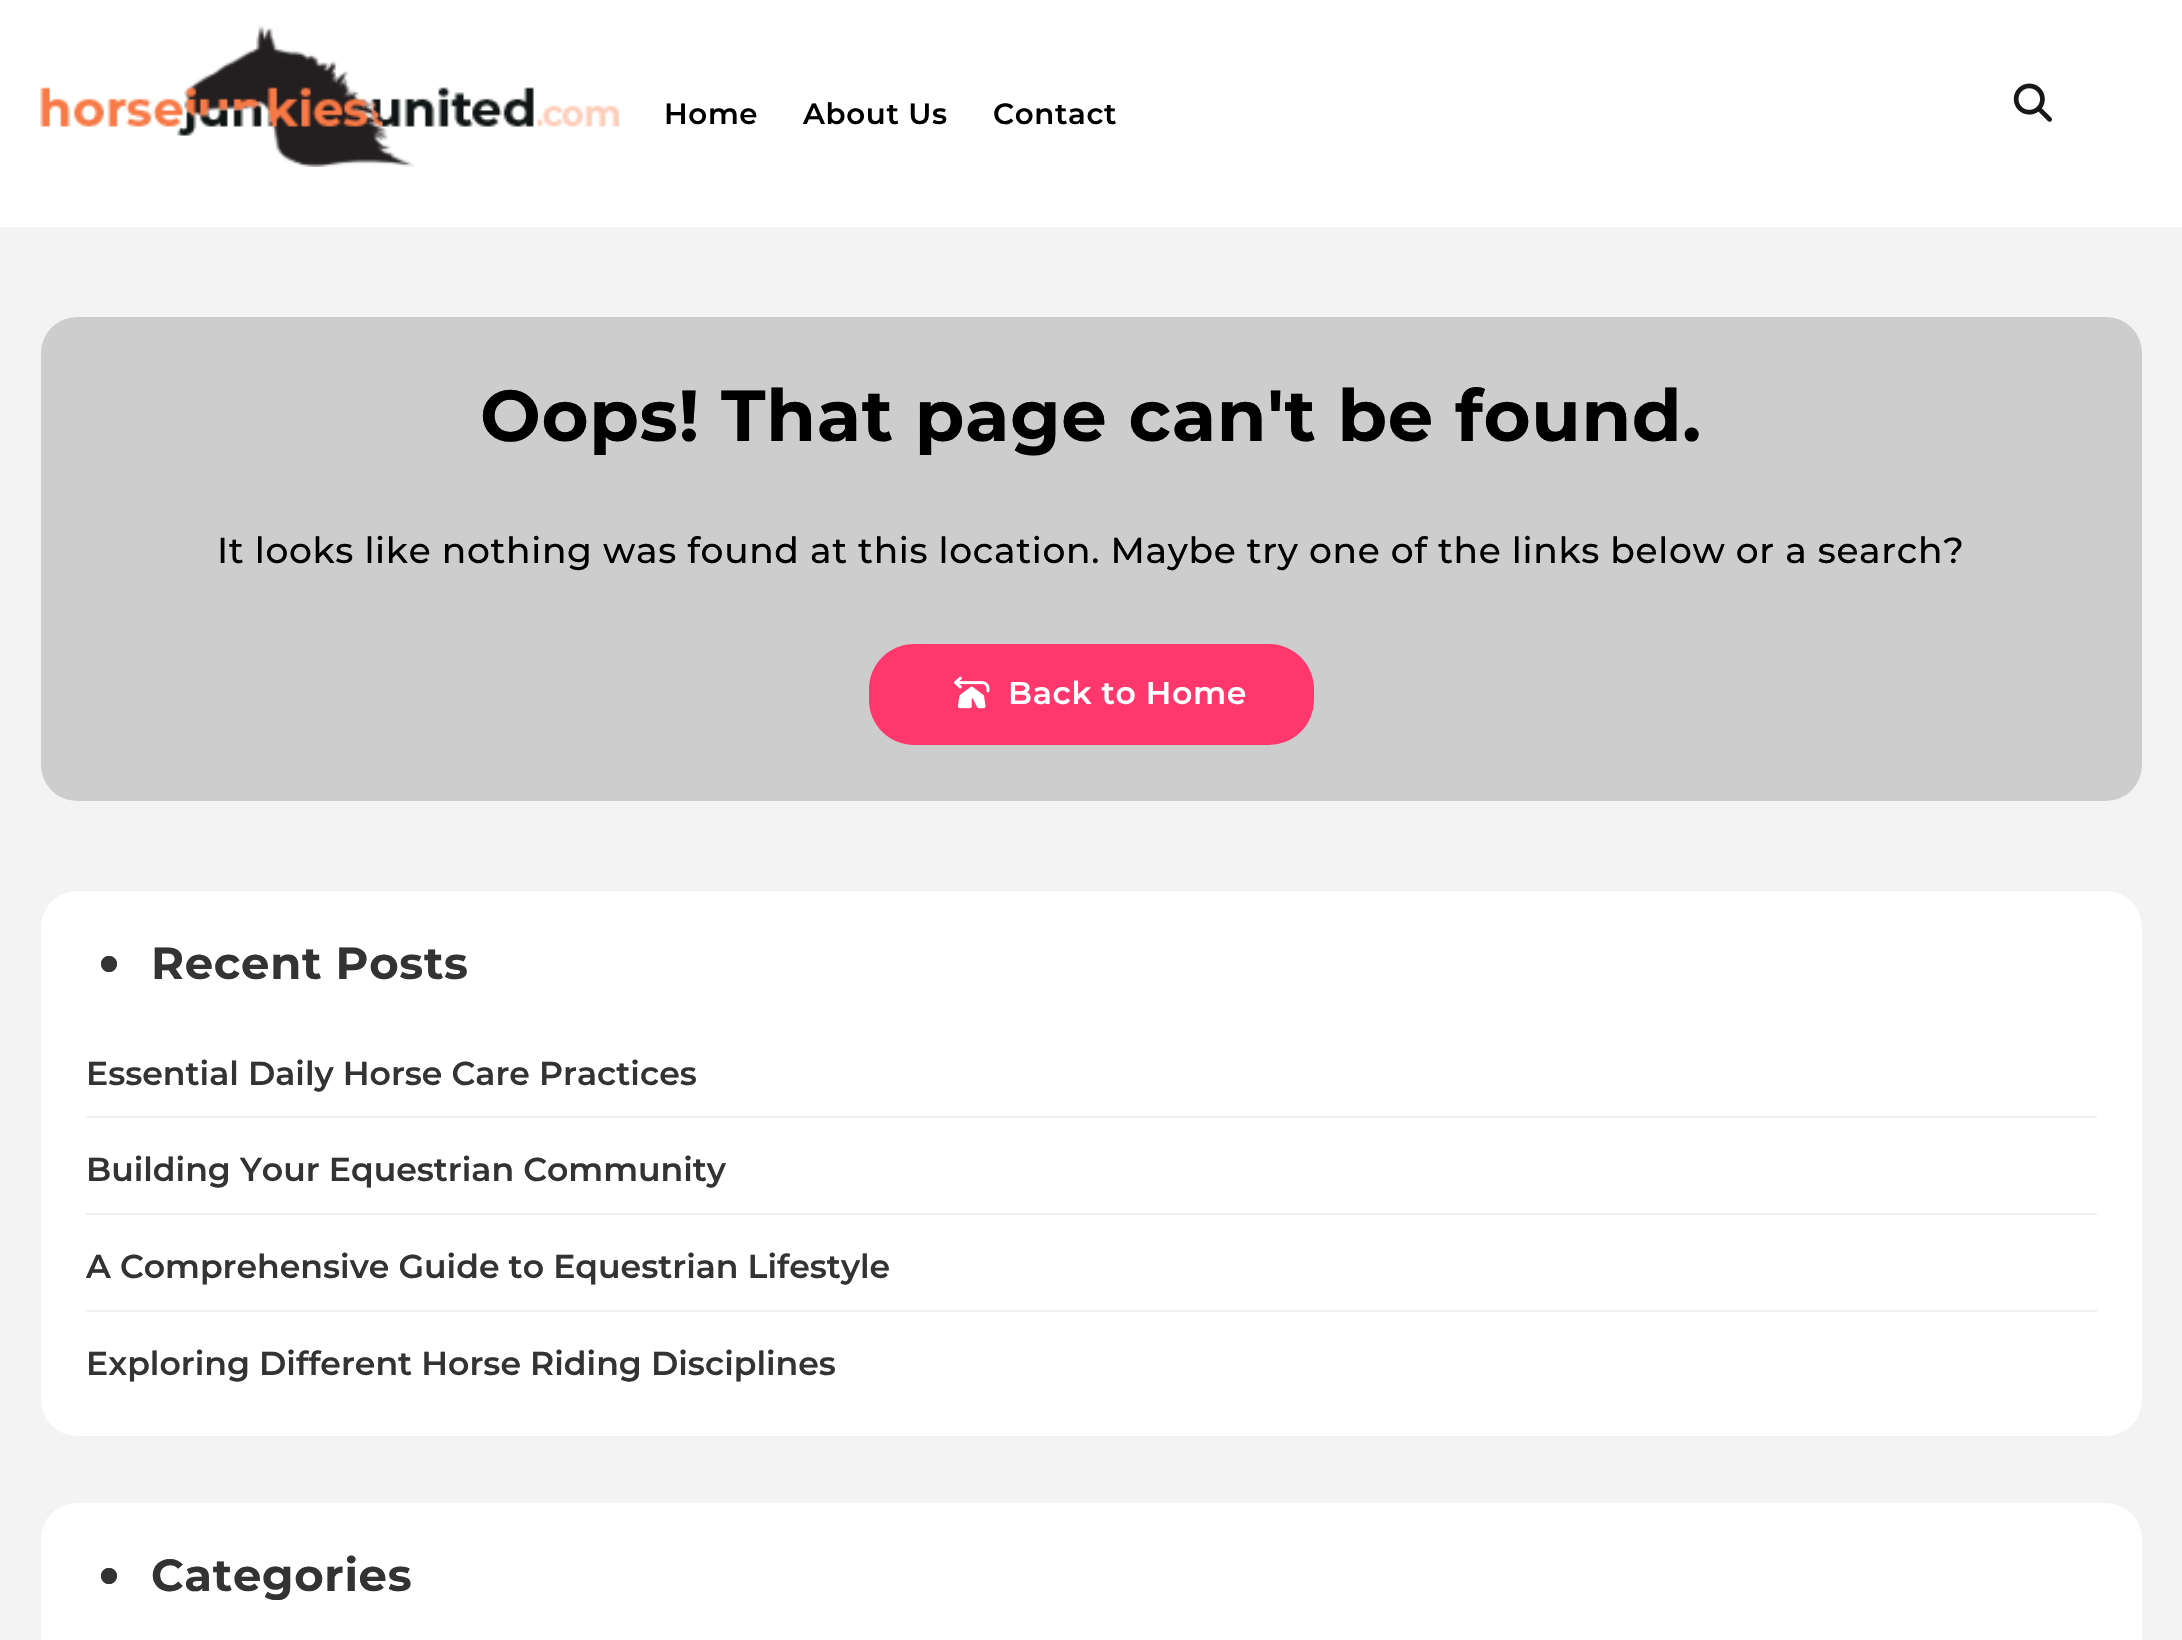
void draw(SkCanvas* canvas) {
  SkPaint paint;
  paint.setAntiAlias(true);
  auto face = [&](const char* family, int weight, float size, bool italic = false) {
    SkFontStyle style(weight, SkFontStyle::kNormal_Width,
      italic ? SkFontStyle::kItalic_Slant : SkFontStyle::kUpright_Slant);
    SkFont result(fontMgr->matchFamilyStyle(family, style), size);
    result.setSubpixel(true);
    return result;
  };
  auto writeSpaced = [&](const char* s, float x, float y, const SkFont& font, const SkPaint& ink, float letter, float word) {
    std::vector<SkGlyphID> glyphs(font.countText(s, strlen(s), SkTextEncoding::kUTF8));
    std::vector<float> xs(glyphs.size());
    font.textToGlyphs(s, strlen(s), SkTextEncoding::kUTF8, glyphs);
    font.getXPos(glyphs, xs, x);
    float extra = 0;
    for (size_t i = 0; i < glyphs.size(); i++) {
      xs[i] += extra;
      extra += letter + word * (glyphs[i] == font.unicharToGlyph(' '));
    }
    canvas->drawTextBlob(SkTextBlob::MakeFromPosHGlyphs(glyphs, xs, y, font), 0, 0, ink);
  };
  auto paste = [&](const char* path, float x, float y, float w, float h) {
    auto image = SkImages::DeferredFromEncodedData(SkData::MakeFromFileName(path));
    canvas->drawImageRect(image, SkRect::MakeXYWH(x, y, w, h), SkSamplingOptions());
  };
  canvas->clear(0xfff3f3f3);
  paint.setColor(0xffffffff);
  canvas->drawRect(SkRect::MakeXYWH(0, 0, 2182, 227), paint);
  paste("img/1.png", 40, 25, 579, 142);
  paste("img/2.png", 2013, 83, 39, 39);
  paint.setColor(0xffcdcdcd);
  canvas->drawRoundRect(SkRect::MakeXYWH(41, 317, 2101, 484), 36, 36, paint);
  paint.setColor(0xffff376c);
  canvas->drawRoundRect(SkRect::MakeXYWH(869, 644, 445, 101), 45, 45, paint);
  paste("img/3.png", 954, 676, 36, 33);
  paint.setColor(0xffffffff);
  canvas->drawRoundRect(SkRect::MakeXYWH(41, 891, 2101, 545), 36, 36, paint);
  paint.setColor(0xff333333);
  canvas->drawCircle(109, 964, 7, paint);
  paint.setStroke(true);
  paint.setStrokeWidth(2);
  canvas->drawCircle(109, 964, 7, paint);
  canvas->drawCircle(109, 964, 7, paint);
  paint.setStroke(false);
  {
    const struct { float x, y, w, h; SkColor color; } items[] = {
      {86, 1116, 2011, 2, 0xfff0f0f0},
      {86, 1213, 2011, 2, 0xfff0f0f0},
      {86, 1310, 2011, 2, 0xfff0f0f0},
    };
    for (auto [x, y, w, h, color] : items) {
      paint.setColor(color);
      canvas->drawRect(SkRect::MakeXYWH(x, y, w, h), paint);
    }
  }
  paint.setColor(0xffffffff);
  canvas->drawRoundRect(SkRect::MakeXYWH(41, 1503, 2101, 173), 36, 36, paint);
  paint.setColor(0xff333333);
  canvas->drawCircle(109, 1576, 7, paint);
  paint.setStroke(true);
  canvas->drawCircle(109, 1576, 7, paint);
  canvas->drawCircle(109, 1576, 7, paint);
  auto f0 = face("Montserrat", 600, 29.25f);
  paint.setStroke(false);
  paint.setColor(0xff000000);
  {
    const struct { const char* s; float x, y; } items[] = {
      {"Home", 664, 124},
      {"About Us", 803, 124},
      {"Contact", 993, 124},
    };
    for (auto [s, x, y] : items) {
      writeSpaced(s, x, y, f0, paint, 0.67f, 0);
    }
  }
  auto f1 = face("Montserrat", 700, 72);
  writeSpaced("Oops! That page can't be found.", 480, 441, f1, paint, 0.67f, 0);
  auto f2 = face("Montserrat", 500, 36);
  writeSpaced("It looks like nothing was found at this location. Maybe try one of the links below or a search?", 217, 563, f2, paint, 0.67f, 0);
  auto f3 = face("Montserrat", 600, 31.5f);
  paint.setColor(0xffffffff);
  writeSpaced("Back to Home", 1008, 704, f3, paint, 0.67f, 0);
  auto f4 = face("Montserrat", 700, 45);
  paint.setColor(0xff333333);
  writeSpaced("Recent Posts", 151, 979, f4, paint, 0.67f, 0);
  auto f5 = face("Montserrat", 600, 33.1f);
  {
    const struct { const char* s; float x, y; } items[] = {
      {"Essential Daily Horse Care Practices", 86, 1085},
      {"Building Your Equestrian Community", 86, 1181},
      {"A Comprehensive Guide to Equestrian Lifestyle", 86, 1278},
      {"Exploring Different Horse Riding Disciplines", 86, 1375},
    };
    for (auto [s, x, y] : items) {
      canvas->drawString(s, x, y, f5, paint);
    }
  }
  writeSpaced("Categories", 151, 1591, f4, paint, 0.67f, 0);
}
